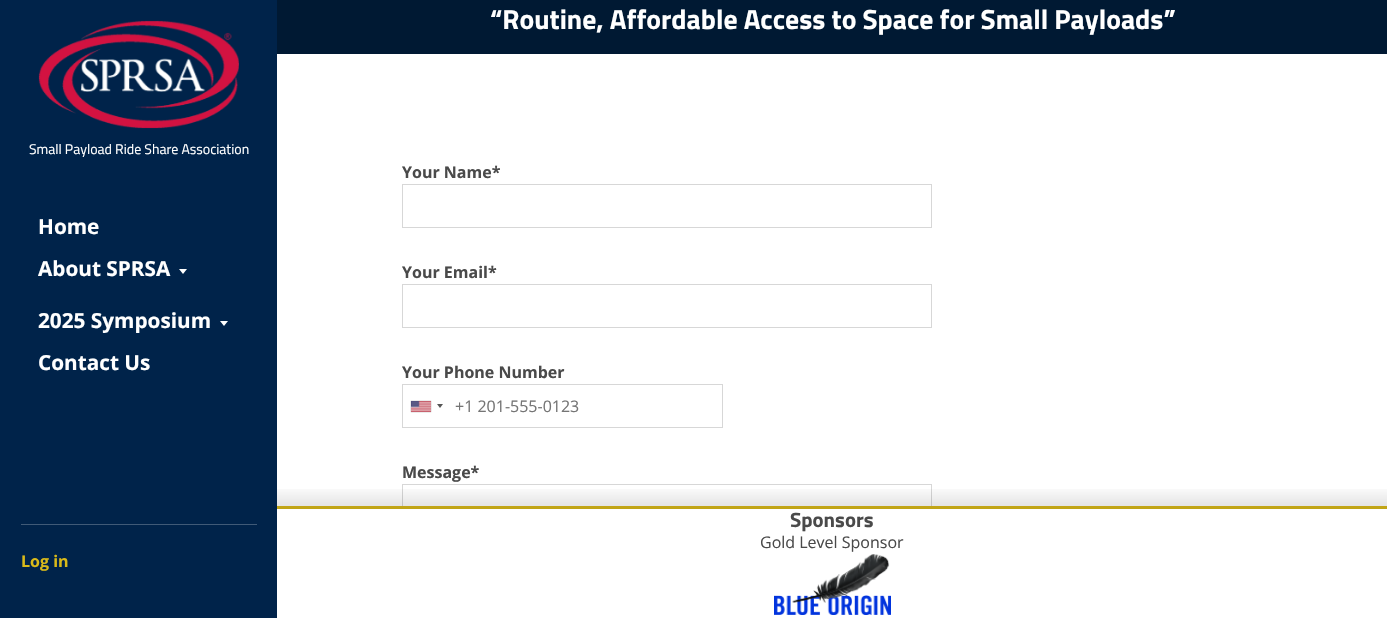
void draw(SkCanvas* canvas) {
  SkPaint paint;
  paint.setAntiAlias(true);
  auto face = [&](const char* family, int weight, float size, bool italic = false) {
    SkFontStyle style(weight, SkFontStyle::kNormal_Width,
      italic ? SkFontStyle::kItalic_Slant : SkFontStyle::kUpright_Slant);
    SkFont result(fontMgr->matchFamilyStyle(family, style), size);
    result.setSubpixel(true);
    return result;
  };
  auto paste = [&](const char* path, float x, float y, float w, float h) {
    auto image = SkImages::DeferredFromEncodedData(SkData::MakeFromFileName(path));
    canvas->drawImageRect(image, SkRect::MakeXYWH(x, y, w, h), SkSamplingOptions());
  };
  auto shape = [&](const char* data, bool evenOdd = false) {
    SkPath result = *SkParsePath::FromSVGString(data);
    if (evenOdd) result.setFillType(SkPathFillType::kEvenOdd);
    return result;
  };
  canvas->clear(0xffffffff);
  paint.setColor(0xff00234a);
  canvas->drawRect(SkRect::MakeXYWH(0, 0, 277, 618), paint);
  paste("img/1.png", 38, 20, 201, 109);
  paint.setColor(0xffffffff);
  canvas->drawPath(shape("M179 269H187L183 274ZM220 321H228L224 326Z"), paint);
  paint.setColor(0xff405a77);
  canvas->drawRect(SkRect::MakeXYWH(21, 524, 236, 1), paint);
  paint.setColor(0xff001933);
  canvas->drawRect(SkRect::MakeXYWH(277, 0, 1110, 54), paint);
  paint.setStroke(true);
  paint.setStrokeWidth(1);
  paint.setColor(0xffd7d7d7);
  canvas->drawRect(SkRect::MakeXYWH(402.5f, 184.5f, 529, 43), paint);
  canvas->drawRect(SkRect::MakeXYWH(402.5f, 284.5f, 529, 43), paint);
  canvas->drawRect(SkRect::MakeXYWH(402.5f, 384.5f, 320, 43), paint);
  paint.setStroke(false);
  paint.setColor(0xff888888);
  paint.setMaskFilter(SkMaskFilter::MakeBlur(kNormal_SkBlurStyle, 0.5f));
  canvas->drawRect(SkRect::MakeXYWH(411, 401, 20, 11), paint);
  paint.setMaskFilter(nullptr);
  paste("img/2.png", 411, 401, 20, 11);
  paint.setColor(0xff555555);
  canvas->drawPath(shape("M437 404H443L440 408Z"), paint);
  paint.setStroke(true);
  paint.setColor(0xffd7d7d7);
  canvas->drawRect(SkRect::MakeXYWH(402.5f, 484.5f, 529, 131), paint);
  paint.setStroke(false);
  paint.setColor(0xffffffff);
  canvas->drawRect(SkRect::MakeXYWH(402, 509, 530, 107), paint);
  paint.setColor(0xffdaba19);
  canvas->drawRect(SkRect::MakeXYWH(277, 506, 1110, 3), paint);
  {
    const SkColor colors[] = {0x00000000, 0x1f000000};
    const float stops[] = {0, 1};
    const SkPoint ends[] = {{832, 485}, {832, 509}};
    paint.setShader(SkGradientShader::MakeLinear(ends, colors, stops, 2, SkTileMode::kClamp));
    paint.setAlpha(255);
  }
  canvas->drawRect(SkRect::MakeXYWH(277, 489, 1110, 20), paint);
  paste("img/3.png", 774, 554, 117, 61);
  auto f0 = face("Titillium Web", 400, 14);
  paint.setShader(nullptr);
  paint.setColor(0xffffffff);
  canvas->drawString("Small Payload Ride Share Association", 29, 154, f0, paint);
  auto f1 = face("Open Sans", 700, 20.75f);
  {
    const struct { const char* s; float x, y; } items[] = {
      {"Home", 38, 234},
      {"About SPRSA", 38, 276},
      {"2025 Symposium", 38, 328},
      {"Contact Us", 38, 370},
    };
    for (auto [s, x, y] : items) {
      canvas->drawString(s, x, y, f1, paint);
    }
  }
  auto f2 = face("Open Sans", 700, 16);
  paint.setColor(0xffdaba19);
  canvas->drawString("Log in", 21, 567, f2, paint);
  auto f3 = face("Titillium Web", 700, 27.75f);
  paint.setColor(0xffffffff);
  canvas->drawString("“Routine, Affordable Access to Space for Small Payloads”", 490, 29, f3, paint);
  paint.setColor(0xff4a4a4a);
  {
    const struct { const char* s; float x, y; } items[] = {
      {"Your Name*", 402, 178},
      {"Your Email*", 402, 278},
      {"Your Phone Number", 402, 378},
    };
    for (auto [s, x, y] : items) {
      canvas->drawString(s, x, y, f2, paint);
    }
  }
  auto f4 = face("Open Sans", 400, 16);
  paint.setColor(0xff757575);
  canvas->drawString("+1 201-555-0123", 455, 412, f4, paint);
  paint.setColor(0xff4a4a4a);
  canvas->drawString("Message*", 402, 478, f2, paint);
  auto f5 = face("Titillium Web", 700, 20.75f);
  canvas->drawString("Sponsors", 790, 527, f5, paint);
  canvas->drawString("Gold Level Sponsor", 760, 548, f4, paint);
}
